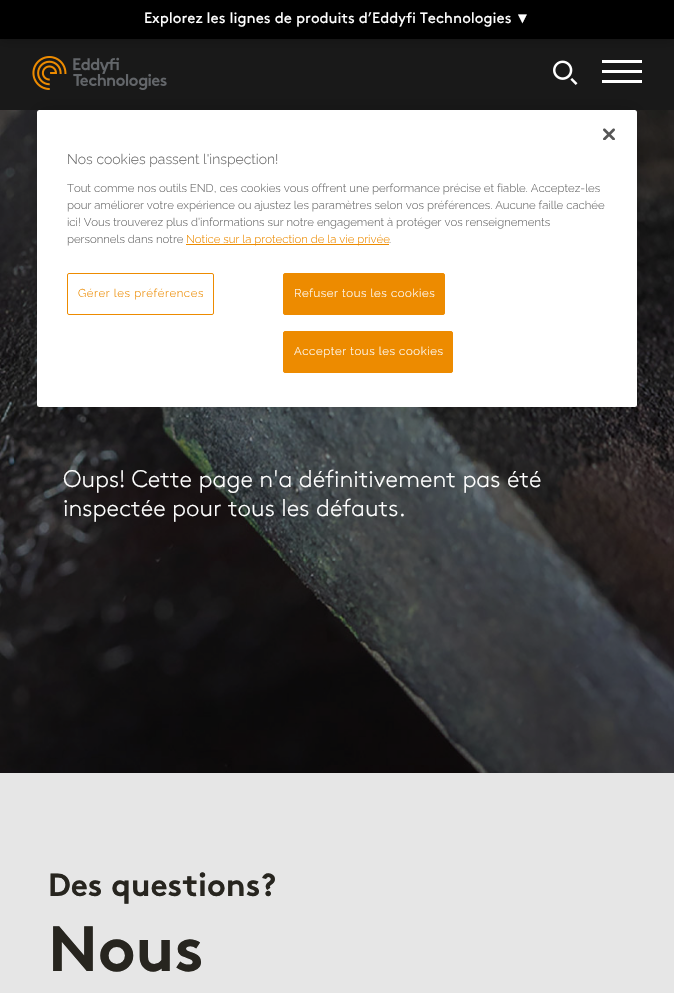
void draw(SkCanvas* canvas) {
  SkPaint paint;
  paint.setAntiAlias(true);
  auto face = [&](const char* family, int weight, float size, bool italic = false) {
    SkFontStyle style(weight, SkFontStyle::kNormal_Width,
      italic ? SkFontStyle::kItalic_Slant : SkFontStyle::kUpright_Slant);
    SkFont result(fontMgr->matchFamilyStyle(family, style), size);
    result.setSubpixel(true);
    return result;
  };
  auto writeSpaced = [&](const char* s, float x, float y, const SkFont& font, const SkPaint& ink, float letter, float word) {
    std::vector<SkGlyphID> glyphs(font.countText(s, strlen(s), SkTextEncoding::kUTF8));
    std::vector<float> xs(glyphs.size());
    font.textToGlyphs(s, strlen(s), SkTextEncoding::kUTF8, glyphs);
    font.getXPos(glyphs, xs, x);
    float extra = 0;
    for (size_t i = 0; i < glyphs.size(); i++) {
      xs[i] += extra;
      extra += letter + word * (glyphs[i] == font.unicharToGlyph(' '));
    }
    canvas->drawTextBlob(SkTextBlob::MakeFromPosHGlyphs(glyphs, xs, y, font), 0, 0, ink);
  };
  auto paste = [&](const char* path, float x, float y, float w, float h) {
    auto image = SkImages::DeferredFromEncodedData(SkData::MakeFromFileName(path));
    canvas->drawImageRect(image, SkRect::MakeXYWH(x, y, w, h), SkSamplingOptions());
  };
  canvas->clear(0xffe6e6e6);
  paint.setColor(0xff191919);
  canvas->drawRect(SkRect::MakeXYWH(0, 39, 674, 71), paint);
  paste("img/1.png", 32, 56, 135, 34);
  paint.setColor(0x33000000);
  paint.setMaskFilter(SkMaskFilter::MakeBlur(kNormal_SkBlurStyle, 5));
  canvas->drawRect(SkRect::MakeXYWH(0, 2, 674, 39), paint);
  paint.setMaskFilter(nullptr);
  paint.setColor(0xff000000);
  canvas->drawRect(SkRect::MakeXYWH(0, 0, 674, 39), paint);
  paste("img/2.png", 553, 60, 25, 25);
  {
    const struct { float x, y, w, h; SkColor color; } items[] = {
      {602, 60, 40, 3, 0xffffffff},
      {602, 70, 40, 3, 0xffffffff},
      {602, 80, 40, 3, 0xffffffff},
    };
    for (auto [x, y, w, h, color] : items) {
      paint.setColor(color);
      canvas->drawRect(SkRect::MakeXYWH(x, y, w, h), paint);
    }
  }
  paste("img/3.png", 0, 110, 674, 663);
  paint.setColor(0x33000000);
  paint.setMaskFilter(SkMaskFilter::MakeBlur(kNormal_SkBlurStyle, 9));
  canvas->drawRoundRect(SkRect::MakeXYWH(37, 110, 600, 297), 2.5f, 2.5f, paint);
  paint.setMaskFilter(nullptr);
  paint.setColor(0xffffffff);
  canvas->drawRoundRect(SkRect::MakeXYWH(37, 110, 600, 297), 2.5f, 2.5f, paint);
  paste("img/4.png", 603, 128, 12, 12);
  paint.setColor(0xffed8b00);
  canvas->drawRect(SkRect::MakeXYWH(186, 244, 203, 1), paint);
  paint.setStroke(true);
  paint.setStrokeWidth(1);
  canvas->drawRoundRect(SkRect::MakeXYWH(67.5f, 273.5f, 146, 41), 1.5f, 1.5f, paint);
  paint.setStroke(false);
  canvas->drawRoundRect(SkRect::MakeXYWH(283.5f, 273.5f, 161, 41), 1.5f, 1.5f, paint);
  paint.setStroke(true);
  canvas->drawRoundRect(SkRect::MakeXYWH(283.5f, 273.5f, 161, 41), 1.5f, 1.5f, paint);
  paint.setStroke(false);
  canvas->drawRoundRect(SkRect::MakeXYWH(283.5f, 331.5f, 169, 41), 1.5f, 1.5f, paint);
  paint.setStroke(true);
  canvas->drawRoundRect(SkRect::MakeXYWH(283.5f, 331.5f, 169, 41), 1.5f, 1.5f, paint);
  auto f0 = face("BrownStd", 400, 15);
  paint.setStroke(false);
  paint.setColor(0xffffffff);
  canvas->drawString("Explorez les lignes de produits d’Eddyfi Technologies", 144, 23, f0, paint);
  auto f1 = face("Liberation Sans", 400, 15);
  canvas->drawString("▼", 515, 23, f1, paint);
  auto f2 = face("BrownStd", 300, 24);
  canvas->drawString("Oups! Cette page n'a définitivement pas été", 63, 487, f2, paint);
  canvas->drawString("inspectée pour tous les défauts.", 63, 516, f2, paint);
  auto f3 = face("BrownStd", 700, 32);
  paint.setColor(0xff27251f);
  canvas->drawString("Des questions?", 48, 896, f3, paint);
  auto f4 = face("BrownStd", 700, 64);
  canvas->drawString("Nous", 48, 971, f4, paint);
  auto f5 = face("Raleway", 300, 14);
  paint.setColor(0xff696969);
  canvas->drawString("Nos cookies passent l'inspection!", 67, 164, f5, paint);
  auto f6 = face("Raleway", 300, 11.4f);
  {
    const struct { const char* s; float x, y; } items[] = {
      {"Tout comme nos outils END, ces cookies vous offrent une performance précise et fiable. Acceptez-les", 67, 192},
      {"pour améliorer votre expérience ou ajustez les paramètres selon vos préférences. Aucune faille cachée", 67, 209},
      {"ici! Vous trouverez plus d'informations sur notre engagement à protéger vos renseignements", 67, 226},
      {"personnels dans notre", 67, 243},
    };
    for (auto [s, x, y] : items) {
      canvas->drawString(s, x, y, f6, paint);
    }
  }
  paint.setColor(0xffed8b00);
  canvas->drawString("Notice sur la protection de la vie privée", 186, 243, f6, paint);
  paint.setColor(0xff696969);
  canvas->drawString(".", 389, 243, f6, paint);
  paint.setColor(0xffed8b00);
  writeSpaced("Gérer les préférences", 78, 297, f6, paint, 0.6f, 0);
  paint.setColor(0xffffffff);
  writeSpaced("Refuser tous les cookies", 294, 297, f6, paint, 0.6f, 0);
  writeSpaced("Accepter tous les cookies", 294, 355, f6, paint, 0.6f, 0);
}
